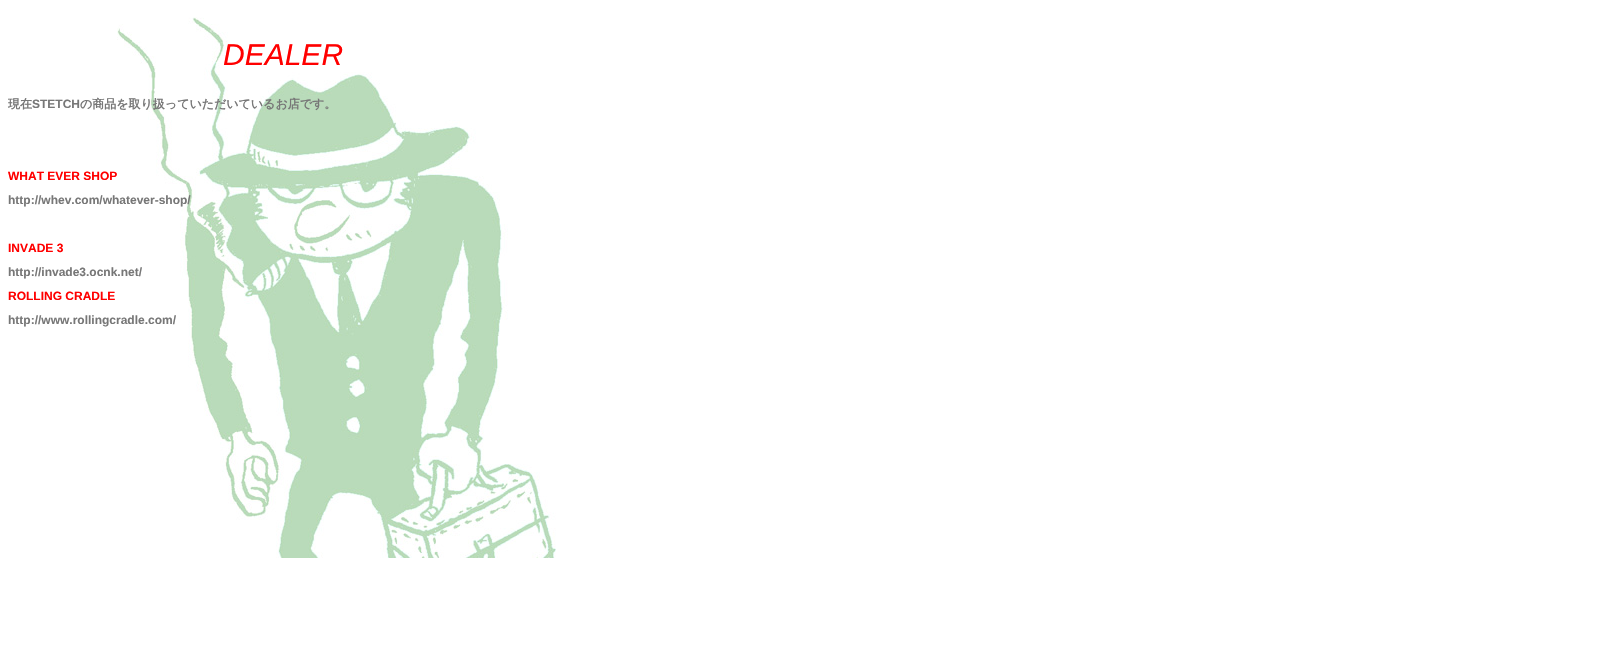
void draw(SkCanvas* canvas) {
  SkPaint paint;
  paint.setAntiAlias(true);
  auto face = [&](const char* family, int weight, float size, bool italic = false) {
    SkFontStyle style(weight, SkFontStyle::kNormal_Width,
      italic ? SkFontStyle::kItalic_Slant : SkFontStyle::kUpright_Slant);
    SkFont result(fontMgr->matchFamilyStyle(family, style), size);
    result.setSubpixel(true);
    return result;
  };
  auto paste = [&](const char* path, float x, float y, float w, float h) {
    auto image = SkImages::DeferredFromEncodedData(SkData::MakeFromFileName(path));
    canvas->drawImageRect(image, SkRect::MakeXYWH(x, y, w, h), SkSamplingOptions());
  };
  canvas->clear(0xffffffff);
  paste("img/1.png", 117, 17, 439, 541);
  auto f0 = face("Liberation Sans", 400, 30, true);
  paint.setColor(0xffff0000);
  canvas->drawString("DEALER", 223, 65, f0, paint);
  auto f1 = face("WenQuanYi Zen Hei", 700, 12);
  paint.setColor(0xff777777);
  canvas->drawString("現在", 8, 108, f1, paint);
  auto f2 = face("Liberation Sans", 700, 12);
  canvas->drawString("STETCH", 32, 108, f2, paint);
  canvas->drawString("の商品を取り扱っていただいているお店です。", 80, 108, f1, paint);
  paint.setColor(0xffff0000);
  canvas->drawString("WHAT EVER SHOP", 8, 180, f2, paint);
  paint.setColor(0xff777777);
  canvas->drawString("http://whev.com/whatever-shop/", 8, 204, f2, paint);
  paint.setColor(0xffff0000);
  canvas->drawString("INVADE 3", 8, 252, f2, paint);
  paint.setColor(0xff777777);
  canvas->drawString("http://invade3.ocnk.net/", 8, 276, f2, paint);
  paint.setColor(0xffff0000);
  canvas->drawString("ROLLING CRADLE", 8, 300, f2, paint);
  paint.setColor(0xff777777);
  canvas->drawString("http://www.rollingcradle.com/", 8, 324, f2, paint);
}
